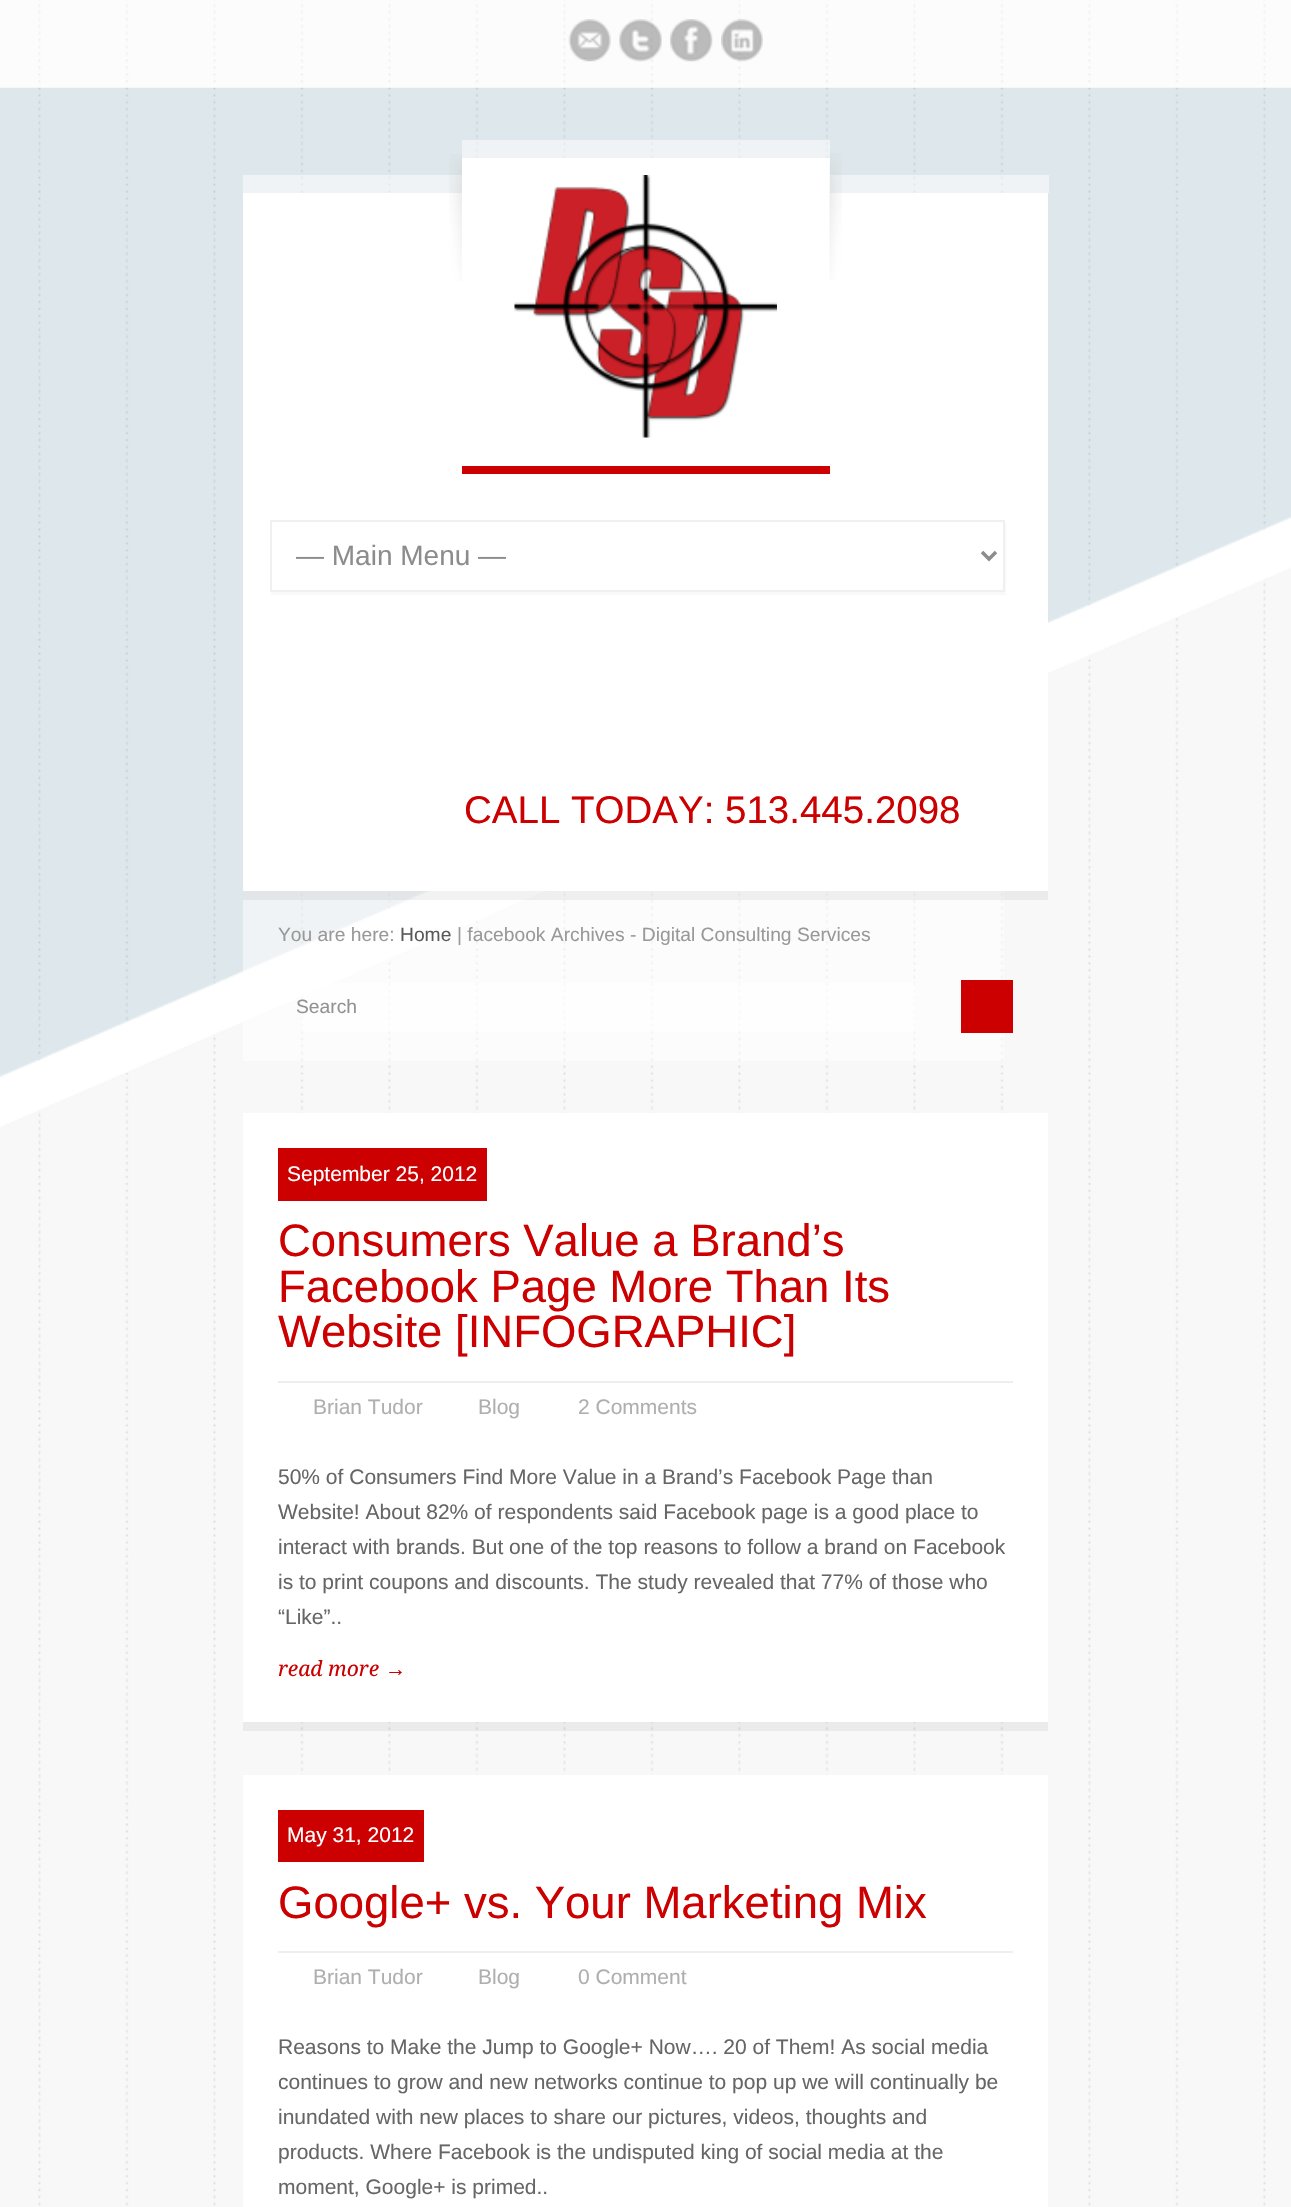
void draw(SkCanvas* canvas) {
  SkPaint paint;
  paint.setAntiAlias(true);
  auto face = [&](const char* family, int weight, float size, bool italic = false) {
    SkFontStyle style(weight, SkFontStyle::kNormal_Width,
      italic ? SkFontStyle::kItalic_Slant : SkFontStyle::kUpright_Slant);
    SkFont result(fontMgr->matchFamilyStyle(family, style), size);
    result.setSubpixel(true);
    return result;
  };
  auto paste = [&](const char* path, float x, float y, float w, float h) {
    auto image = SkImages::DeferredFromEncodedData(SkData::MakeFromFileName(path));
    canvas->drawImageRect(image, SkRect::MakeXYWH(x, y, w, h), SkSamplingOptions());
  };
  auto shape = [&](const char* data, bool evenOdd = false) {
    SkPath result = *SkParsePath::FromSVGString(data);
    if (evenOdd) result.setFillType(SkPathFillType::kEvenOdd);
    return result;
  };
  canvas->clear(0xffffffff);
  paste("img/1.png", 0, 0, 1291, 2207);
  paste("img/6.png", 0, 87, 1291, 1040);
  paint.setColor(0x80ffffff);
  canvas->drawRect(SkRect::MakeXYWH(0, 0, 1291, 88), paint);
  paste("img/2.png", 568, 19, 43, 43);
  paste("img/3.png", 619, 19, 43, 43);
  paste("img/4.png", 670, 19, 43, 43);
  paste("img/5.png", 721, 19, 42, 43);
  canvas->drawRect(SkRect::MakeXYWH(243, 175, 806, 18), paint);
  paint.setColor(0xffffffff);
  canvas->drawRect(SkRect::MakeXYWH(243, 193, 805, 698), paint);
  paste("img/7.png", 449, 154, 13, 127);
  {
    const struct { float x, y, w, h; SkColor color; } items[] = {
      {462, 466, 368, 8, 0xffcc0000},
      {462, 140, 368, 18, 0x80ffffff},
      {462, 158, 368, 35, 0xffffffff},
    };
    for (auto [x, y, w, h, color] : items) {
      paint.setColor(color);
      canvas->drawRect(SkRect::MakeXYWH(x, y, w, h), paint);
    }
  }
  paste("img/8.png", 514, 175, 263, 263);
  paste("img/9.png", 829, 153, 13, 127);
  paint.setColor(0xfff9f9f9);
  canvas->drawPath(shape("M271 592V595H1006V523H1004V592Z"), paint);
  paint.setStroke(true);
  paint.setStrokeWidth(2);
  paint.setColor(0xfff0f0f0);
  canvas->drawRect(SkRect::MakeXYWH(271, 521, 733, 70), paint);
  paint.setStrokeWidth(3.5f);
  paint.setColor(0xff8c8c8c);
  canvas->drawPath(shape("M982 552L989 559L996 552"), paint);
  paint.setStroke(false);
  {
    const struct { float x, y, w, h; SkColor color; } items[] = {
      {243, 891, 761, 170, 0x80ffffff},
      {243, 891, 805, 9, 0x0d000000},
      {301, 983, 615, 49, 0x80ffffff},
      {961, 980, 52, 53, 0xffcc0000},
    };
    for (auto [x, y, w, h, color] : items) {
      paint.setColor(color);
      canvas->drawRect(SkRect::MakeXYWH(x, y, w, h), paint);
    }
  }
  paint.setColor(0x0d000000);
  canvas->drawPath(shape("M243 1122V1731H1048V1722H243Z"), paint);
  {
    const struct { float x, y, w, h; SkColor color; } items[] = {
      {243, 1113, 805, 609, 0xffffffff},
      {278, 1148, 209, 53, 0xffcc0000},
      {278, 1381, 735, 2, 0xffeeeeee},
      {243, 1775, 805, 432, 0xffffffff},
      {278, 1810, 146, 52, 0xffcc0000},
      {278, 1951, 735, 2, 0xffeeeeee},
    };
    for (auto [x, y, w, h, color] : items) {
      paint.setColor(color);
      canvas->drawRect(SkRect::MakeXYWH(x, y, w, h), paint);
    }
  }
  auto f0 = face("Liberation Sans", 400, 28);
  paint.setColor(0xff8c8c8c);
  canvas->drawString("— Main Menu —", 296, 565, f0, paint);
  auto f1 = face("Liberation Sans", 400, 38.5f);
  paint.setColor(0xffcc0000);
  canvas->drawString("CALL TODAY: 513.445.2098", 464, 823, f1, paint);
  auto f2 = face("Liberation Sans", 400, 19.25f);
  paint.setColor(0xff999999);
  canvas->drawString("You are here:", 278, 941, f2, paint);
  paint.setColor(0xff595959);
  canvas->drawString("Home", 400, 941, f2, paint);
  paint.setColor(0xff999999);
  canvas->drawString("| facebook Archives - Digital Consulting Services", 457, 941, f2, paint);
  paint.setColor(0xff929292);
  canvas->drawString("Search", 296, 1013, f2, paint);
  auto f3 = face("Liberation Sans", 400, 21);
  paint.setColor(0xffffffff);
  canvas->drawString("September 25, 2012", 287, 1181, f3, paint);
  auto f4 = face("Liberation Sans", 400, 45.5f);
  paint.setColor(0xffcc0000);
  {
    const struct { const char* s; float x, y; } items[] = {
      {"Consumers Value a Brand’s", 278, 1256},
      {"Facebook Page More Than Its", 278, 1302},
      {"Website [INFOGRAPHIC]", 278, 1347},
    };
    for (auto [s, x, y] : items) {
      canvas->drawString(s, x, y, f4, paint);
    }
  }
  paint.setColor(0xffafafaf);
  {
    const struct { const char* s; float x, y; } items[] = {
      {"Brian Tudor", 313, 1414},
      {"Blog", 478, 1414},
      {"2 Comments", 578, 1414},
    };
    for (auto [s, x, y] : items) {
      canvas->drawString(s, x, y, f3, paint);
    }
  }
  paint.setColor(0xff666666);
  {
    const struct { const char* s; float x, y; } items[] = {
      {"50% of Consumers Find More Value in a Brand’s Facebook Page than", 278, 1484},
      {"Website! About 82% of respondents said Facebook page is a good place to", 278, 1519},
      {"interact with brands. But one of the top reasons to follow a brand on Facebook", 278, 1554},
      {"is to print coupons and discounts. The study revealed that 77% of those who", 278, 1589},
      {"“Like”..", 278, 1624},
    };
    for (auto [s, x, y] : items) {
      canvas->drawString(s, x, y, f3, paint);
    }
  }
  auto f5 = face("Droid Serif", 400, 21, true);
  paint.setColor(0xffcc0000);
  canvas->drawString("read more", 278, 1676, f5, paint);
  auto f6 = face("Liberation Serif", 400, 21, true);
  canvas->drawString("→", 385, 1676, f6, paint);
  paint.setColor(0xffffffff);
  canvas->drawString("May 31, 2012", 287, 1842, f3, paint);
  paint.setColor(0xffcc0000);
  canvas->drawString("Google+ vs. Your Marketing Mix", 278, 1918, f4, paint);
  paint.setColor(0xffafafaf);
  {
    const struct { const char* s; float x, y; } items[] = {
      {"Brian Tudor", 313, 1984},
      {"Blog", 478, 1984},
      {"0 Comment", 578, 1984},
    };
    for (auto [s, x, y] : items) {
      canvas->drawString(s, x, y, f3, paint);
    }
  }
  paint.setColor(0xff666666);
  {
    const struct { const char* s; float x, y; } items[] = {
      {"Reasons to Make the Jump to Google+ Now…. 20 of Them! As social media", 278, 2054},
      {"continues to grow and new networks continue to pop up we will continually be", 278, 2089},
      {"inundated with new places to share our pictures, videos, thoughts and", 278, 2124},
      {"products. Where Facebook is the undisputed king of social media at the", 278, 2159},
      {"moment, Google+ is primed..", 278, 2194},
    };
    for (auto [s, x, y] : items) {
      canvas->drawString(s, x, y, f3, paint);
    }
  }
}
